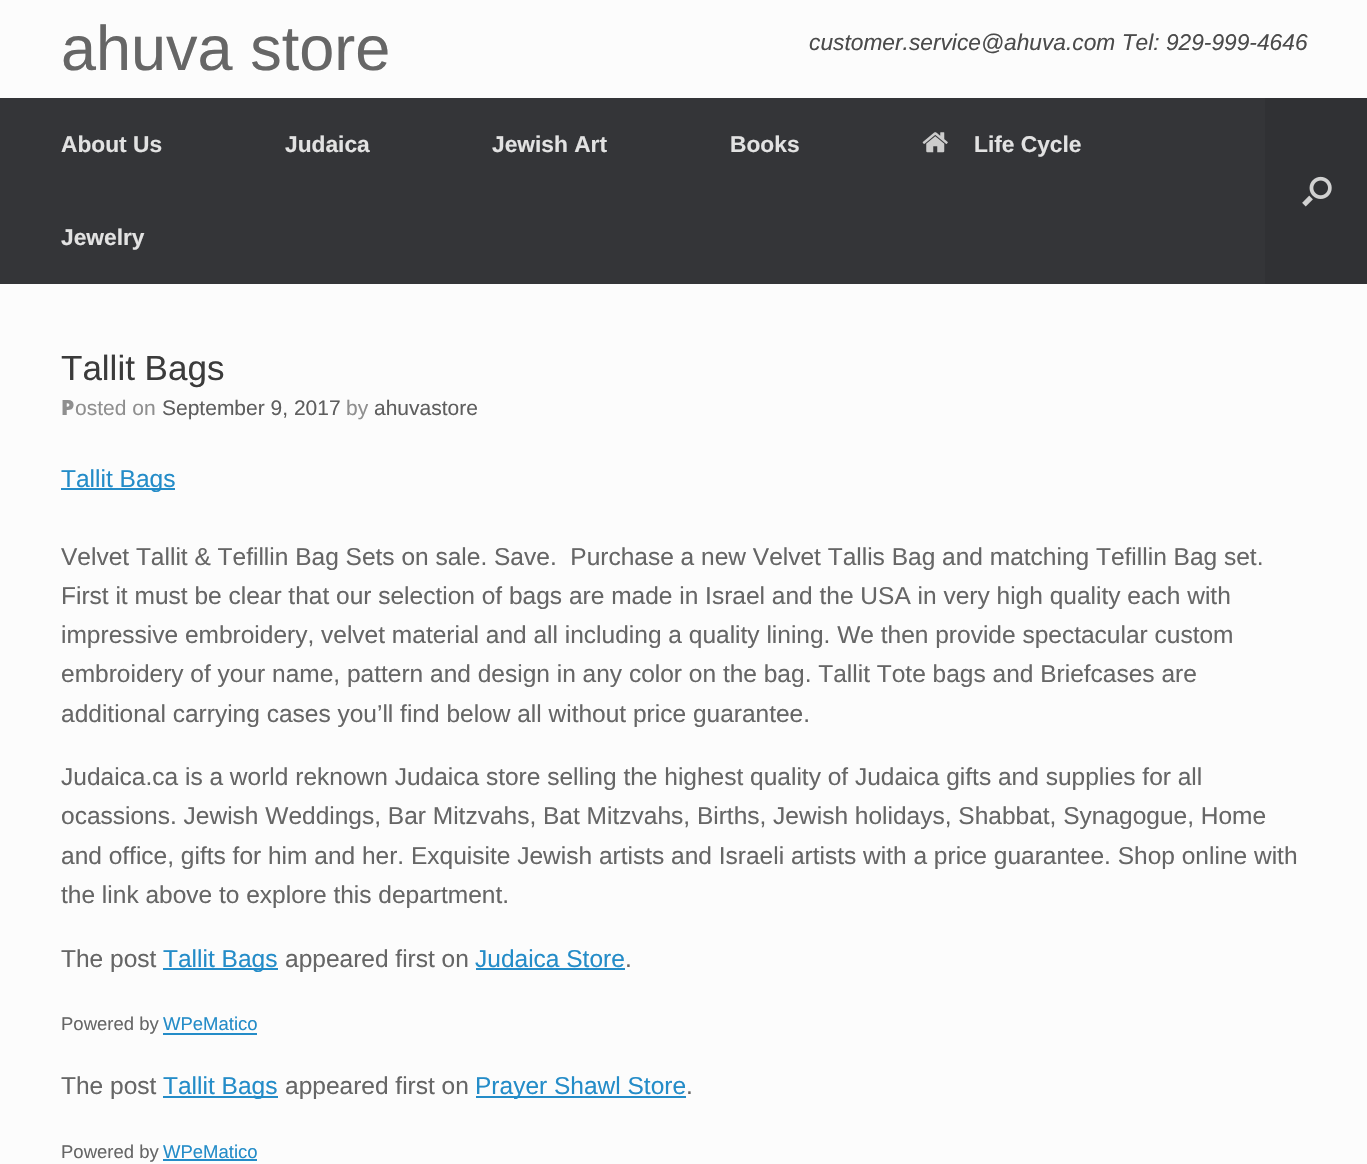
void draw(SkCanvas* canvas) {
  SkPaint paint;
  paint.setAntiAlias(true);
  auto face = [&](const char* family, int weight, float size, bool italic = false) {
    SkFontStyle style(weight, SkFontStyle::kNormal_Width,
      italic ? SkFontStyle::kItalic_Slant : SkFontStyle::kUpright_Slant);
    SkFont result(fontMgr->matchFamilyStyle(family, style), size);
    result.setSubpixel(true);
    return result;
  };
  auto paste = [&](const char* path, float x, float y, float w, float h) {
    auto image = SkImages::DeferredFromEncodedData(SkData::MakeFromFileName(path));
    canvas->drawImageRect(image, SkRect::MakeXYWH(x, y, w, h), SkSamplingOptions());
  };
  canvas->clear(0xfffcfcfc);
  paint.setColor(0xff343538);
  canvas->drawRect(SkRect::MakeXYWH(0, 98, 1265, 186), paint);
  paste("img/1.png", 922, 132, 26, 21);
  paint.setColor(0xff303134);
  canvas->drawRect(SkRect::MakeXYWH(1265, 98, 102, 186), paint);
  paste("img/2.png", 1302, 176, 30, 31);
  {
    const struct { float x, y, w, h; SkColor color; } items[] = {
      {61, 488, 114, 2, 0xff248cc8},
      {163, 968, 115, 2, 0xff248cc8},
      {476, 968, 149, 2, 0xff248cc8},
      {163, 1033, 94, 2, 0xff248cc8},
      {163, 1096, 115, 2, 0xff248cc8},
      {476, 1096, 210, 2, 0xff248cc8},
      {163, 1159, 94, 2, 0xff248cc8},
    };
    for (auto [x, y, w, h, color] : items) {
      paint.setColor(color);
      canvas->drawRect(SkRect::MakeXYWH(x, y, w, h), paint);
    }
  }
  auto f0 = face("Liberation Sans", 400, 63);
  paint.setColor(0xff666666);
  canvas->drawString("ahuva store", 61, 70, f0, paint);
  auto f1 = face("Liberation Sans", 400, 22.75f, true);
  paint.setColor(0xff4b4b4b);
  canvas->drawString("customer.service@ahuva.com Tel: 929-999-4646", 809, 50, f1, paint);
  auto f2 = face("Liberation Sans", 700, 22.75f);
  paint.setColor(0xffe2e2e2);
  {
    const struct { const char* s; float x, y; } items[] = {
      {"About Us", 61, 152},
      {"Judaica", 285, 152},
      {"Jewish Art", 492, 152},
      {"Books", 730, 152},
      {"Life Cycle", 974, 152},
      {"Jewelry", 61, 245},
    };
    for (auto [s, x, y] : items) {
      canvas->drawString(s, x, y, f2, paint);
    }
  }
  auto f3 = face("Liberation Sans", 400, 35);
  paint.setColor(0xff3b3b3b);
  canvas->drawString("Tallit Bags", 61, 380, f3, paint);
  auto f4 = face("Noto Sans", 900, 21);
  paint.setColor(0xff8f8f8f);
  canvas->drawString("P", 61, 415, f4, paint);
  auto f5 = face("Liberation Sans", 400, 21);
  canvas->drawString("osted on", 75, 415, f5, paint);
  paint.setColor(0xff5e5e5e);
  canvas->drawString("September 9, 2017", 162, 415, f5, paint);
  paint.setColor(0xff8f8f8f);
  canvas->drawString("by", 346, 415, f5, paint);
  paint.setColor(0xff5e5e5e);
  canvas->drawString("ahuvastore", 374, 415, f5, paint);
  auto f6 = face("Liberation Sans", 400, 24.5f);
  paint.setColor(0xff248cc8);
  canvas->drawString("Tallit Bags", 61, 487, f6, paint);
  paint.setColor(0xff666666);
  {
    const struct { const char* s; float x, y; } items[] = {
      {"Velvet Tallit & Tefillin Bag Sets on sale. Save.  Purchase a new Velvet Tallis Bag and matching Tefillin Bag set.", 61, 565},
      {"First it must be clear that our selection of bags are made in Israel and the USA in very high quality each with", 61, 604},
      {"impressive embroidery, velvet material and all including a quality lining. We then provide spectacular custom", 61, 643},
      {"embroidery of your name, pattern and design in any color on the bag. Tallit Tote bags and Briefcases are", 61, 682},
      {"additional carrying cases you’ll find below all without price guarantee.", 61, 722},
      {"Judaica.ca is a world reknown Judaica store selling the highest quality of Judaica gifts and supplies for all", 61, 785},
      {"ocassions. Jewish Weddings, Bar Mitzvahs, Bat Mitzvahs, Births, Jewish holidays, Shabbat, Synagogue, Home", 61, 824},
      {"and office, gifts for him and her. Exquisite Jewish artists and Israeli artists with a price guarantee. Shop online with", 61, 864},
      {"the link above to explore this department.", 61, 903},
      {"The post", 61, 967},
    };
    for (auto [s, x, y] : items) {
      canvas->drawString(s, x, y, f6, paint);
    }
  }
  paint.setColor(0xff248cc8);
  canvas->drawString("Tallit Bags", 163, 967, f6, paint);
  paint.setColor(0xff666666);
  canvas->drawString("appeared first on", 285, 967, f6, paint);
  paint.setColor(0xff248cc8);
  canvas->drawString("Judaica Store", 475, 967, f6, paint);
  paint.setColor(0xff666666);
  canvas->drawString(".", 625, 967, f6, paint);
  auto f7 = face("Liberation Sans", 400, 18.5f);
  canvas->drawString("Powered by", 61, 1030, f7, paint);
  paint.setColor(0xff248cc8);
  canvas->drawString("WPeMatico", 163, 1030, f7, paint);
  paint.setColor(0xff666666);
  canvas->drawString("The post", 61, 1094, f6, paint);
  paint.setColor(0xff248cc8);
  canvas->drawString("Tallit Bags", 163, 1094, f6, paint);
  paint.setColor(0xff666666);
  canvas->drawString("appeared first on", 285, 1094, f6, paint);
  paint.setColor(0xff248cc8);
  canvas->drawString("Prayer Shawl Store", 475, 1094, f6, paint);
  paint.setColor(0xff666666);
  canvas->drawString(".", 686, 1094, f6, paint);
  canvas->drawString("Powered by", 61, 1158, f7, paint);
  paint.setColor(0xff248cc8);
  canvas->drawString("WPeMatico", 163, 1158, f7, paint);
}
